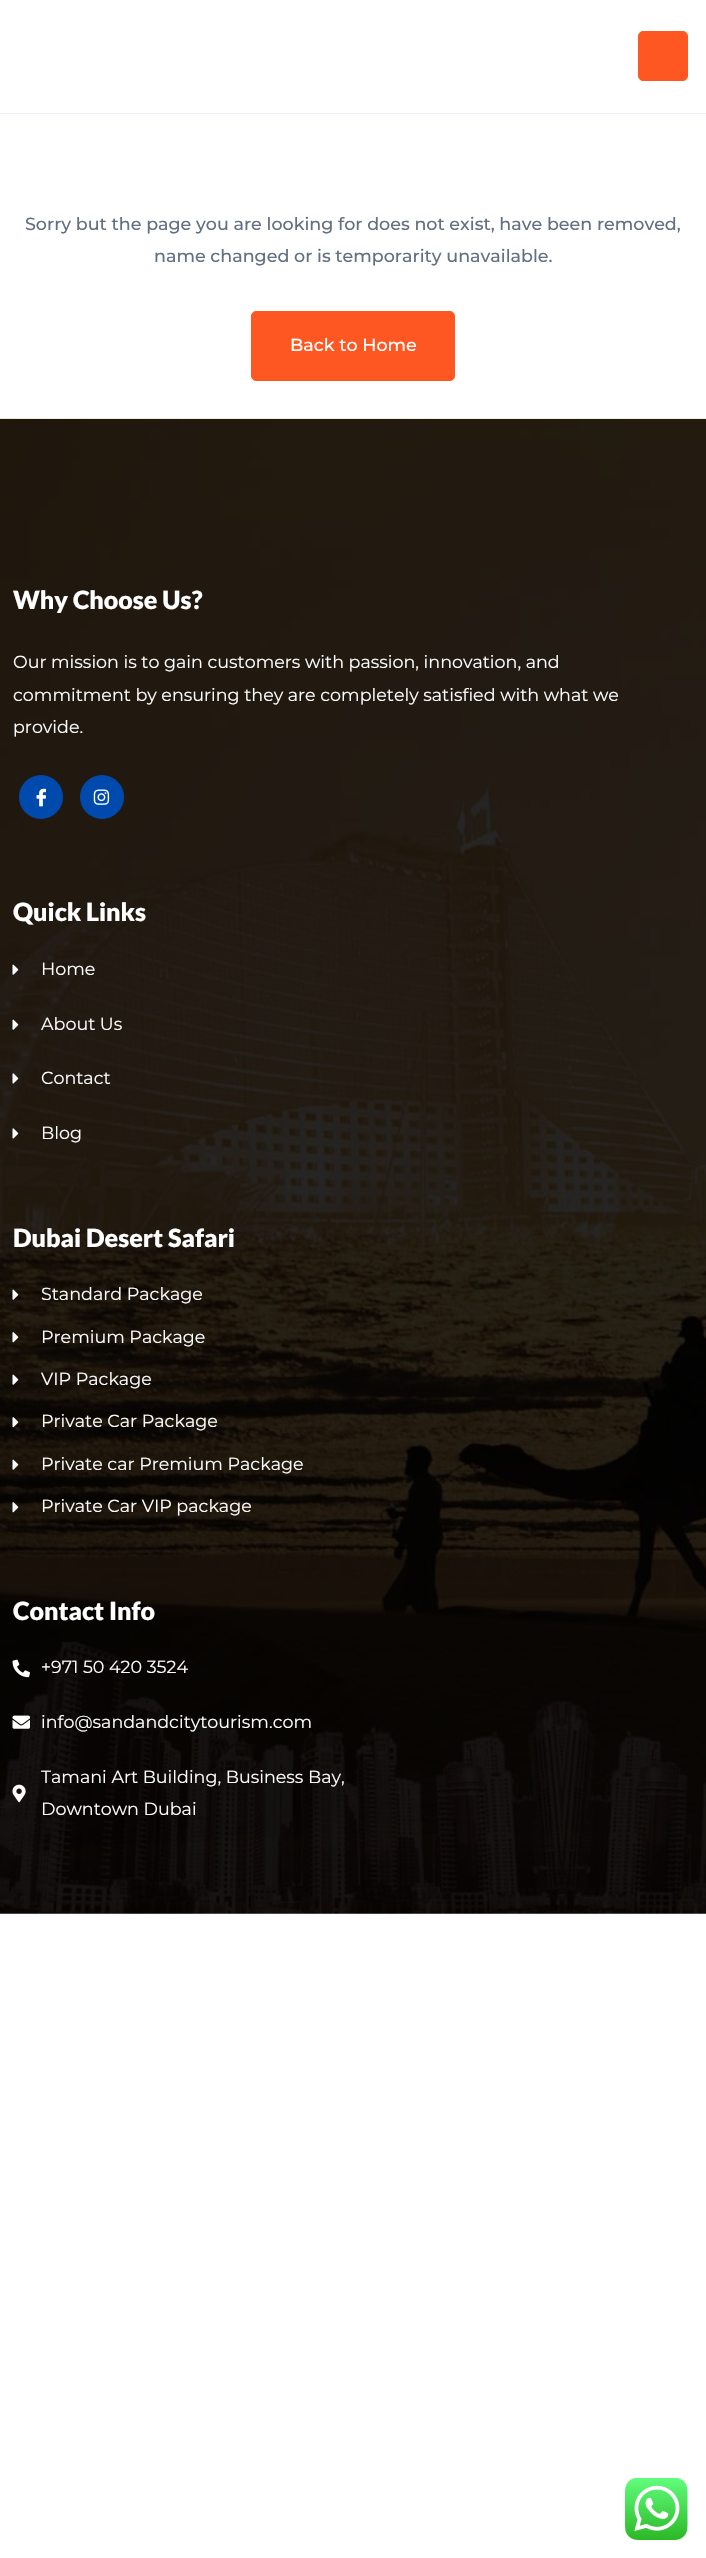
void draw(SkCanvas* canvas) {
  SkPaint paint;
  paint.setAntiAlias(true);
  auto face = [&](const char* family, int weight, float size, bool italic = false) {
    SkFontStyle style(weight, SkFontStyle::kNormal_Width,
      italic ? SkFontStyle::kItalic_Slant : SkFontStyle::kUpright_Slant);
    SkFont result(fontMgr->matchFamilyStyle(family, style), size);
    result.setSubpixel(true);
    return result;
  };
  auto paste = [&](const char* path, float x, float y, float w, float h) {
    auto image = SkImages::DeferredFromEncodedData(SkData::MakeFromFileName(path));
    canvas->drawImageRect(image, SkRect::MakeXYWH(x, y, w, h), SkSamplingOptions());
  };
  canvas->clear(0xffffffff);
  paint.setColor(0xffe9edf5);
  canvas->drawRect(SkRect::MakeXYWH(0, 113, 706, 1), paint);
  paint.setColor(0xffff5722);
  canvas->drawRoundRect(SkRect::MakeXYWH(638.5f, 31.5f, 49, 49), 4.5f, 4.5f, paint);
  paint.setStroke(true);
  paint.setStrokeWidth(1);
  canvas->drawRoundRect(SkRect::MakeXYWH(638.5f, 31.5f, 49, 49), 4.5f, 4.5f, paint);
  paint.setStroke(false);
  canvas->drawRoundRect(SkRect::MakeXYWH(251.5f, 311.5f, 203, 69), 4.5f, 4.5f, paint);
  paint.setStroke(true);
  canvas->drawRoundRect(SkRect::MakeXYWH(251.5f, 311.5f, 203, 69), 4.5f, 4.5f, paint);
  paste("img/1.png", 0, 418, 706, 1496);
  paint.setStroke(false);
  paint.setColor(0xff004aad);
  canvas->drawCircle(41, 797, 22, paint);
  paste("img/2.png", 36, 788, 10, 19);
  canvas->drawCircle(102, 797, 22, paint);
  paste("img/3.png", 93, 789, 17, 16);
  paste("img/4.png", 12, 964, 7, 11);
  paste("img/5.png", 12, 1019, 7, 11);
  paste("img/6.png", 12, 1073, 7, 11);
  paste("img/7.png", 12, 1128, 7, 11);
  paste("img/8.png", 12, 1289, 7, 11);
  paste("img/9.png", 12, 1332, 7, 11);
  paste("img/10.png", 12, 1374, 7, 11);
  paste("img/11.png", 12, 1417, 7, 11);
  paste("img/12.png", 12, 1459, 7, 11);
  paste("img/13.png", 12, 1502, 7, 11);
  paste("img/14.png", 12, 1659, 18, 19);
  paste("img/15.png", 12, 1715, 18, 14);
  paste("img/16.png", 12, 1784, 14, 19);
  paste("img/17.png", 625, 2478, 63, 62);
  auto f0 = face("Montserrat", 500, 17.5f);
  paint.setColor(0xff637082);
  canvas->drawString("Sorry but the page you are looking for does not exist, have been removed,", 25, 230, f0, paint);
  canvas->drawString("name changed or is temporarity unavailable.", 154, 262, f0, paint);
  paint.setColor(0xffffffff);
  canvas->drawString("Back to Home", 290, 351, f0, paint);
  auto f1 = face("Lato", 900, 25);
  canvas->drawString("Why Choose Us?", 13, 609, f1, paint);
  auto f2 = face("Montserrat", 400, 17.5f);
  {
    const struct { const char* s; float x, y; } items[] = {
      {"Our mission is to gain customers with passion, innovation, and", 13, 668},
      {"commitment by ensuring they are completely satisfied with what we", 13, 701},
      {"provide.", 13, 733},
    };
    for (auto [s, x, y] : items) {
      canvas->drawString(s, x, y, f2, paint);
    }
  }
  canvas->drawString("Quick Links", 13, 921, f1, paint);
  {
    const struct { const char* s; float x, y; } items[] = {
      {"Home", 41, 975},
      {"About Us", 41, 1030},
      {"Contact", 41, 1084},
      {"Blog", 41, 1139},
    };
    for (auto [s, x, y] : items) {
      canvas->drawString(s, x, y, f2, paint);
    }
  }
  canvas->drawString("Dubai Desert Safari", 13, 1247, f1, paint);
  {
    const struct { const char* s; float x, y; } items[] = {
      {"Standard Package", 41, 1300},
      {"Premium Package", 41, 1343},
      {"VIP Package", 41, 1385},
      {"Private Car Package", 41, 1427},
      {"Private car Premium Package", 41, 1470},
      {"Private Car VIP package", 41, 1512},
    };
    for (auto [s, x, y] : items) {
      canvas->drawString(s, x, y, f2, paint);
    }
  }
  canvas->drawString("Contact Info", 13, 1620, f1, paint);
  {
    const struct { const char* s; float x, y; } items[] = {
      {"+971 50 420 3524", 41, 1673},
      {"info@sandandcitytourism.com", 41, 1728},
      {"Tamani Art Building, Business Bay,", 41, 1783},
      {"Downtown Dubai", 41, 1815},
    };
    for (auto [s, x, y] : items) {
      canvas->drawString(s, x, y, f2, paint);
    }
  }
}
